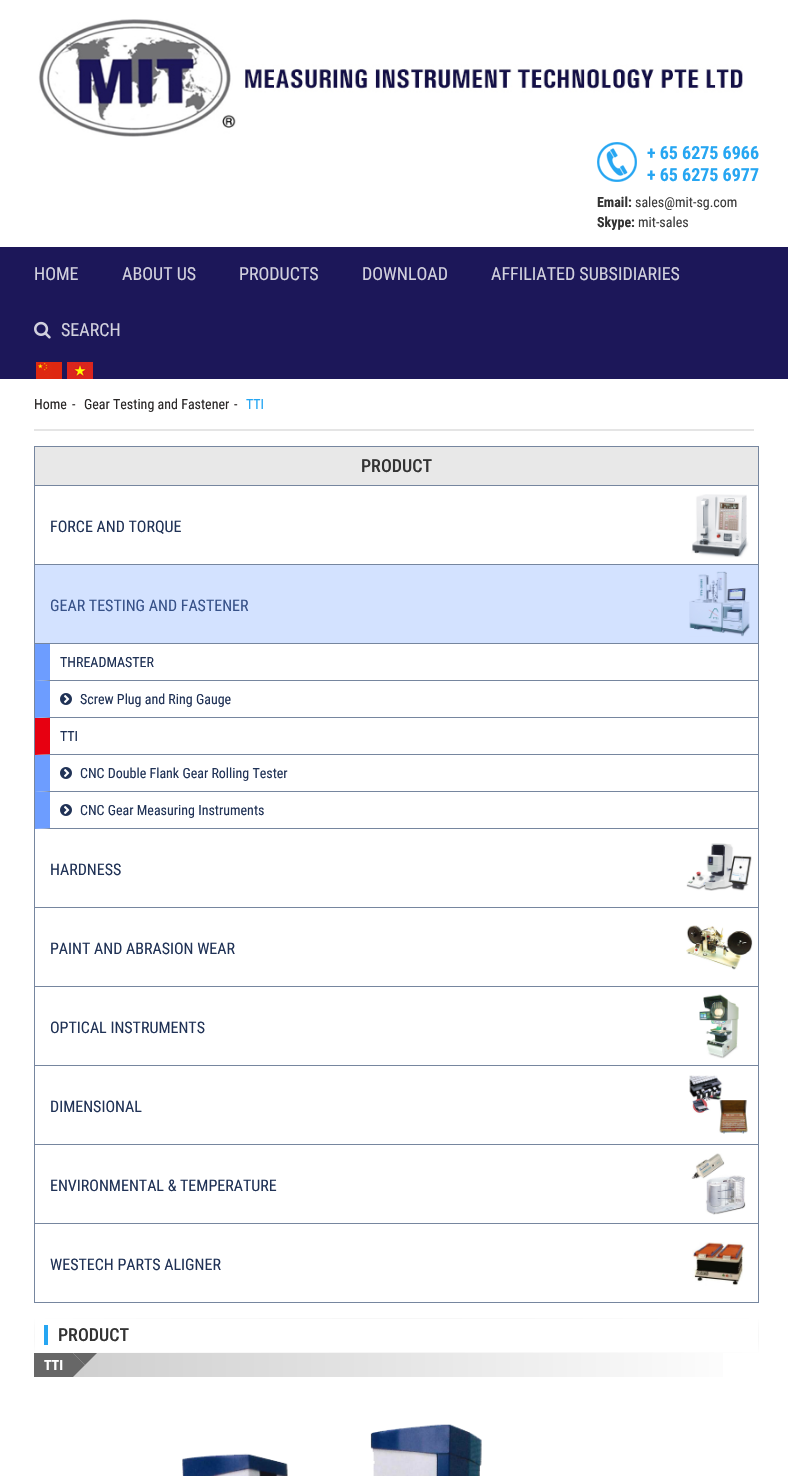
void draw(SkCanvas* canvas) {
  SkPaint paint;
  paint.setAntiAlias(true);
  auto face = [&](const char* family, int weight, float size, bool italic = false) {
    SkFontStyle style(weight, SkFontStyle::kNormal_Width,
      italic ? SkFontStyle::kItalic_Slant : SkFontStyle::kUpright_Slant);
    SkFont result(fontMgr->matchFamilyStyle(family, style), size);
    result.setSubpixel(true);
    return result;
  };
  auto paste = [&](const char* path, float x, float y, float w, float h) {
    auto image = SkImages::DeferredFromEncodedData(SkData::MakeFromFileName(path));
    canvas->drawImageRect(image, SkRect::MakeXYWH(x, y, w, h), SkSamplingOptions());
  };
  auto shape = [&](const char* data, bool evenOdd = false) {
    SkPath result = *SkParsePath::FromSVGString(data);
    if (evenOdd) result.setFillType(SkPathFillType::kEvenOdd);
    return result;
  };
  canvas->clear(0xffffffff);
  paint.setColor(0xffd3e2ff);
  canvas->drawRect(SkRect::MakeXYWH(35, 565, 723, 78), paint);
  paste("img/1.png", 38, 19, 705, 118);
  paste("img/2.png", 597, 142, 40, 40);
  paint.setColor(0xff1c1759);
  canvas->drawRect(SkRect::MakeXYWH(0, 247, 788, 132), paint);
  paste("img/3.png", 34, 321, 17, 18);
  paste("img/4.png", 36, 362, 26, 17);
  paste("img/5.png", 67, 362, 26, 17);
  paint.setColor(0xffe5e5e5);
  canvas->drawRect(SkRect::MakeXYWH(34, 429, 720, 2), paint);
  paint.setStroke(true);
  paint.setStrokeWidth(1);
  paint.setColor(0xff76869f);
  canvas->drawRect(SkRect::MakeXYWH(34.5f, 446.5f, 724, 856), paint);
  paint.setStroke(false);
  {
    const struct { float x, y, w, h; SkColor color; } items[] = {
      {35, 447, 723, 38, 0xffe8e8e8},
      {35, 485, 723, 1, 0xff76869f},
      {35, 564, 723, 1, 0xff76869f},
    };
    for (auto [x, y, w, h, color] : items) {
      paint.setColor(color);
      canvas->drawRect(SkRect::MakeXYWH(x, y, w, h), paint);
    }
  }
  paste("img/6.png", 691, 494, 58, 64);
  paste("img/7.png", 689, 571, 61, 66);
  canvas->drawRect(SkRect::MakeXYWH(35, 643, 723, 1), paint);
  canvas->drawPath(shape("M758 681H35L50 680H758Z"), paint);
  paint.setColor(0xff6d9dff);
  canvas->drawPath(shape("M35 681V644H50V680Z"), paint);
  paint.setColor(0xff76869f);
  canvas->drawPath(shape("M758 718H35L50 717H758Z"), paint);
  paint.setColor(0xff6d9dff);
  canvas->drawPath(shape("M35 718V681H50V717Z"), paint);
  paste("img/8.png", 60, 693, 12, 12);
  paint.setColor(0xff76869f);
  canvas->drawPath(shape("M758 755H35L50 754H758Z"), paint);
  paint.setColor(0xffe70011);
  canvas->drawPath(shape("M35 755V718H50V754Z"), paint);
  paint.setColor(0xff76869f);
  canvas->drawPath(shape("M758 792H35L50 791H758Z"), paint);
  paint.setColor(0xff6d9dff);
  canvas->drawPath(shape("M35 792V755H50V791Z"), paint);
  paste("img/8.png", 60, 767, 12, 12);
  paint.setColor(0xff76869f);
  canvas->drawPath(shape("M758 829H35L50 828H758Z"), paint);
  paint.setColor(0xff6d9dff);
  canvas->drawPath(shape("M35 829V792H50V828Z"), paint);
  paste("img/8.png", 60, 804, 12, 12);
  paint.setColor(0xff76869f);
  canvas->drawRect(SkRect::MakeXYWH(35, 907, 723, 1), paint);
  paste("img/9.png", 686, 843, 66, 48);
  canvas->drawRect(SkRect::MakeXYWH(35, 986, 723, 1), paint);
  paste("img/10.png", 686, 925, 67, 45);
  canvas->drawRect(SkRect::MakeXYWH(35, 1065, 723, 1), paint);
  paste("img/11.png", 699, 994, 40, 65);
  canvas->drawRect(SkRect::MakeXYWH(35, 1144, 723, 1), paint);
  paste("img/12.png", 689, 1075, 59, 59);
  canvas->drawRect(SkRect::MakeXYWH(35, 1223, 723, 1), paint);
  paste("img/13.png", 691, 1153, 55, 62);
  paste("img/14.png", 692, 1242, 53, 44);
  {
    const SkColor colors[] = {0xffe5e5e5, 0xffffffff};
    const float stops[] = {0, 1};
    SkMatrix m = SkMatrix::Translate(397, 1336).preScale(513, 25);
    paint.setShader(SkGradientShader::MakeRadial({0, 0}, 1, colors, stops, 2, SkTileMode::kClamp, 0, &m));
    paint.setAlpha(255);
  }
  canvas->drawRect(SkRect::MakeXYWH(34, 1318, 725, 35), paint);
  paint.setShader(nullptr);
  paint.setColor(0xffffffff);
  canvas->drawRect(SkRect::MakeXYWH(35, 1319, 723, 33), paint);
  paint.setColor(0xff26a6f2);
  canvas->drawRect(SkRect::MakeXYWH(44, 1325, 4, 20), paint);
  {
    const SkColor colors[] = {0xffcccccc, 0xffffffff};
    const float stops[] = {0, 1};
    const SkPoint ends[] = {{34, 1365}, {759, 1365}};
    paint.setShader(SkGradientShader::MakeLinear(ends, colors, stops, 2, SkTileMode::kClamp));
    paint.setAlpha(255);
  }
  canvas->drawRect(SkRect::MakeXYWH(73, 1353, 650, 24), paint);
  paint.setShader(nullptr);
  paint.setColor(0xff676767);
  canvas->drawRect(SkRect::MakeXYWH(34, 1353, 39, 24), paint);
  canvas->drawPath(shape("M73 1353H97L85 1365Z"), paint);
  canvas->drawPath(shape("M73 1377V1353L85 1365Z"), paint);
  paste("img/15.png", 182, 1424, 300, 52);
  auto f0 = face("Roboto Condensed", 700, 18);
  paint.setColor(0xff26a6f2);
  canvas->drawString("+ 65 6275 6966", 647, 159, f0, paint);
  canvas->drawString("+ 65 6275 6977", 647, 181, f0, paint);
  auto f1 = face("Roboto Condensed", 700, 14);
  paint.setColor(0xff333333);
  canvas->drawString("Email:", 597, 207, f1, paint);
  auto f2 = face("Roboto Condensed", 400, 14);
  paint.setColor(0xff3d3d3d);
  canvas->drawString("sales@mit-sg.com", 635, 207, f2, paint);
  paint.setColor(0xff333333);
  canvas->drawString("Skype:", 597, 227, f1, paint);
  paint.setColor(0xff3d3d3d);
  canvas->drawString("mit-sales", 638, 227, f2, paint);
  auto f3 = face("Roboto Condensed", 400, 18);
  paint.setColor(0xffd2d1de);
  {
    const struct { const char* s; float x, y; } items[] = {
      {"HOME", 34, 280},
      {"ABOUT US", 122, 280},
      {"PRODUCTS", 239, 280},
      {"DOWNLOAD", 362, 280},
      {"AFFILIATED SUBSIDIARIES", 491, 280},
      {"SEARCH", 61, 336},
    };
    for (auto [s, x, y] : items) {
      canvas->drawString(s, x, y, f3, paint);
    }
  }
  paint.setColor(0xff2a2727);
  {
    const struct { const char* s; float x, y; } items[] = {
      {"Home", 34, 409},
      {"-", 72, 409},
      {"Gear Testing and Fastener", 84, 409},
      {"-", 234, 409},
    };
    for (auto [s, x, y] : items) {
      canvas->drawString(s, x, y, f2, paint);
    }
  }
  paint.setColor(0xff26a6f2);
  canvas->drawString("TTI", 246, 409, f2, paint);
  auto f4 = face("Roboto Condensed", 500, 18);
  paint.setColor(0xff333333);
  canvas->drawString("PRODUCT", 361, 472, f4, paint);
  auto f5 = face("Roboto Condensed", 400, 16);
  paint.setColor(0xff203256);
  canvas->drawString("FORCE AND TORQUE", 50, 532, f5, paint);
  paint.setColor(0xff375289);
  canvas->drawString("GEAR TESTING AND FASTENER", 50, 611, f5, paint);
  paint.setColor(0xff203256);
  {
    const struct { const char* s; float x, y; } items[] = {
      {"THREADMASTER", 60, 667},
      {"Screw Plug and Ring Gauge", 80, 704},
      {"TTI", 60, 741},
      {"CNC Double Flank Gear Rolling Tester", 80, 778},
      {"CNC Gear Measuring Instruments", 80, 815},
    };
    for (auto [s, x, y] : items) {
      canvas->drawString(s, x, y, f2, paint);
    }
  }
  {
    const struct { const char* s; float x, y; } items[] = {
      {"HARDNESS", 50, 875},
      {"PAINT AND ABRASION WEAR", 50, 954},
      {"OPTICAL INSTRUMENTS", 50, 1033},
      {"DIMENSIONAL", 50, 1112},
      {"ENVIRONMENTAL & TEMPERATURE", 50, 1191},
      {"WESTECH PARTS ALIGNER", 50, 1270},
    };
    for (auto [s, x, y] : items) {
      canvas->drawString(s, x, y, f5, paint);
    }
  }
  paint.setColor(0xff333333);
  canvas->drawString("PRODUCT", 58, 1341, f4, paint);
  paint.setColor(0xffffffff);
  canvas->drawString("TTI", 44, 1370, f1, paint);
}
